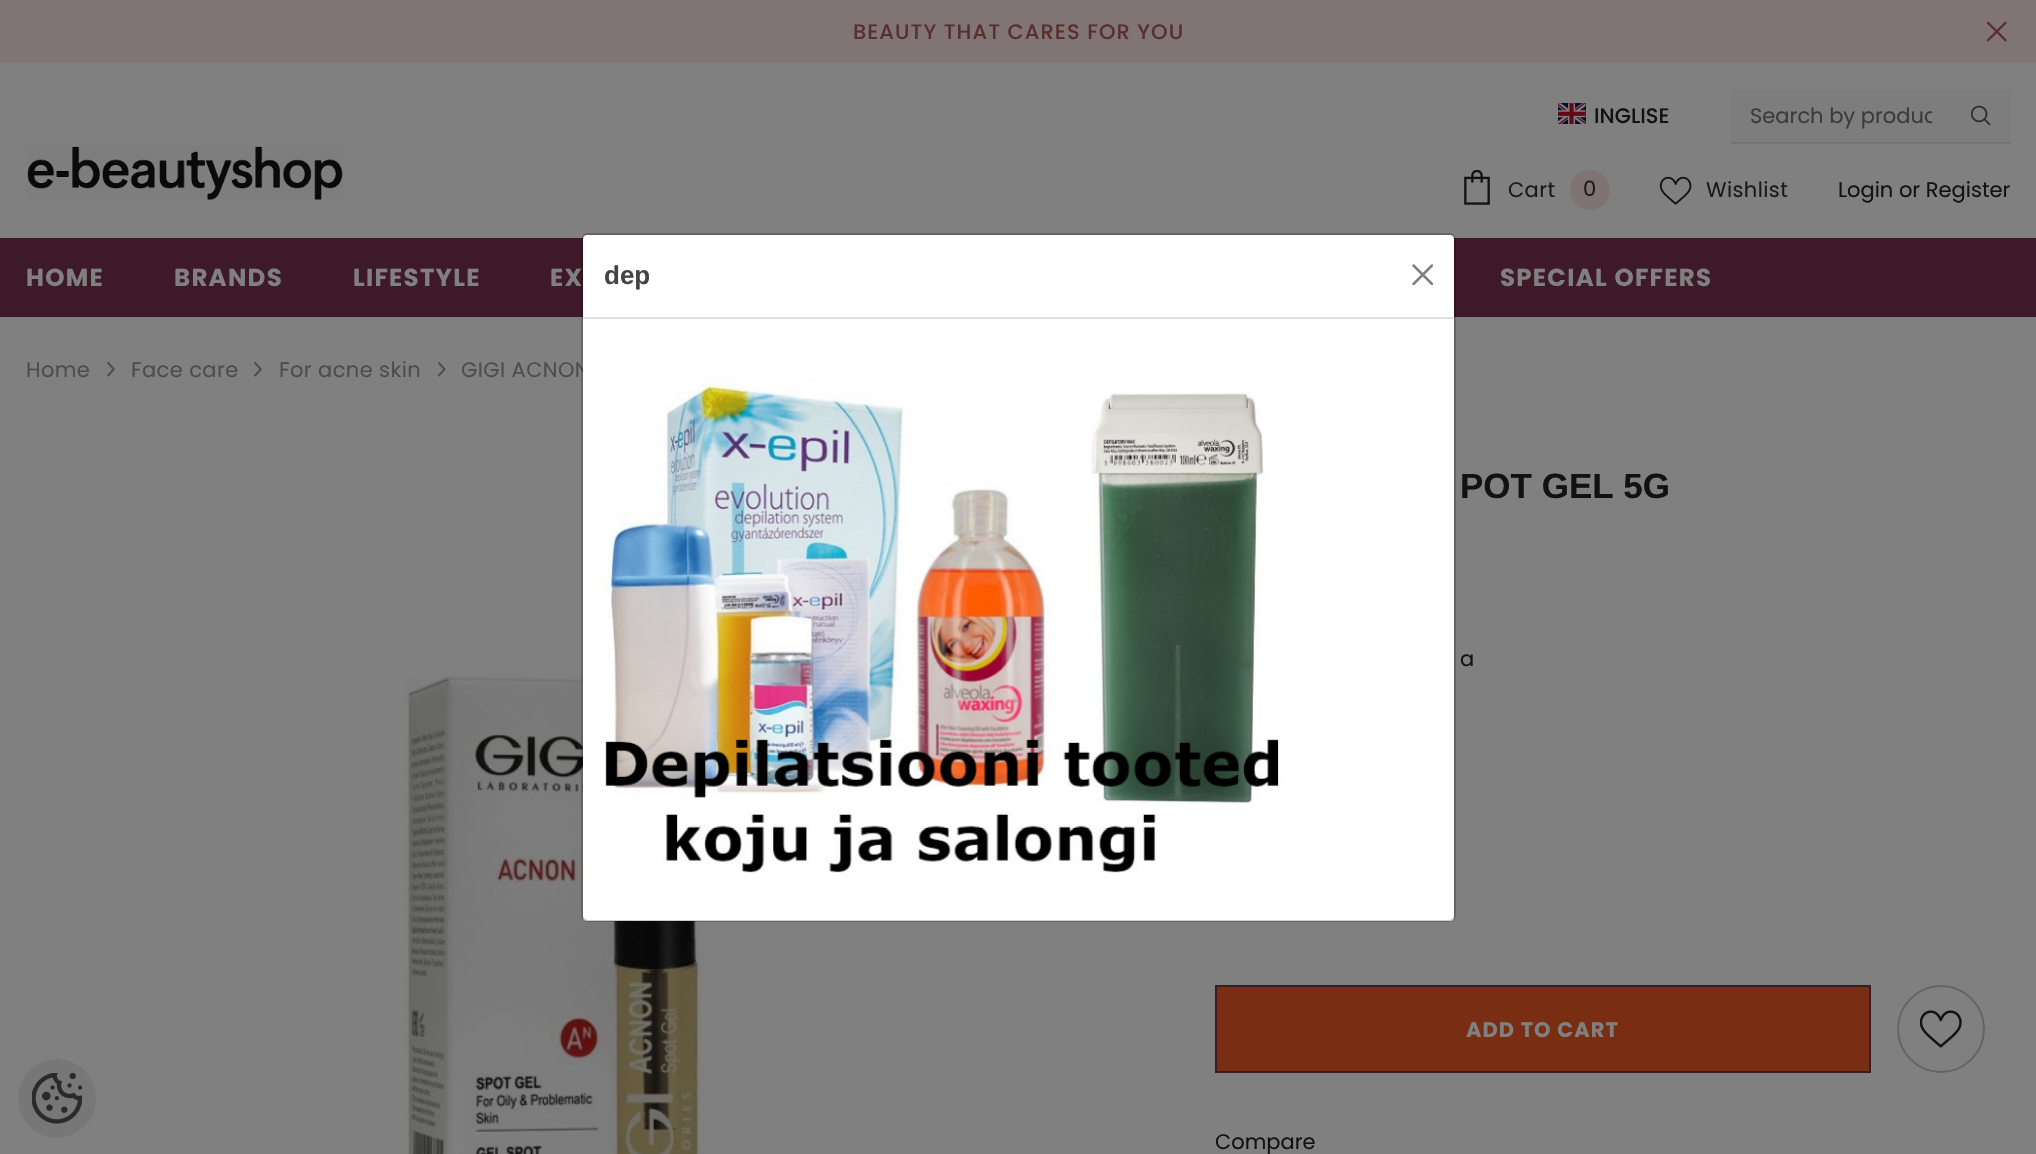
void draw(SkCanvas* canvas) {
  SkPaint paint;
  paint.setAntiAlias(true);
  auto face = [&](const char* family, int weight, float size, bool italic = false) {
    SkFontStyle style(weight, SkFontStyle::kNormal_Width,
      italic ? SkFontStyle::kItalic_Slant : SkFontStyle::kUpright_Slant);
    SkFont result(fontMgr->matchFamilyStyle(family, style), size);
    result.setSubpixel(true);
    return result;
  };
  auto writeSpaced = [&](const char* s, float x, float y, const SkFont& font, const SkPaint& ink, float letter, float word) {
    std::vector<SkGlyphID> glyphs(font.countText(s, strlen(s), SkTextEncoding::kUTF8));
    std::vector<float> xs(glyphs.size());
    font.textToGlyphs(s, strlen(s), SkTextEncoding::kUTF8, glyphs);
    font.getXPos(glyphs, xs, x);
    float extra = 0;
    for (size_t i = 0; i < glyphs.size(); i++) {
      xs[i] += extra;
      extra += letter + word * (glyphs[i] == font.unicharToGlyph(' '));
    }
    canvas->drawTextBlob(SkTextBlob::MakeFromPosHGlyphs(glyphs, xs, y, font), 0, 0, ink);
  };
  auto paste = [&](const char* path, float x, float y, float w, float h) {
    auto image = SkImages::DeferredFromEncodedData(SkData::MakeFromFileName(path));
    canvas->drawImageRect(image, SkRect::MakeXYWH(x, y, w, h), SkSamplingOptions());
  };
  canvas->clear(0xff808080);
  paint.setColor(0xff807474);
  canvas->drawRect(SkRect::MakeXYWH(0, 0, 2036, 63), paint);
  paste("img/1.png", 1986, 21, 21, 21);
  paste("img/2.png", 27, 146, 316, 54);
  paste("img/3.png", 1558, 103, 28, 21);
  paint.setColor(0xff7d7d7d);
  canvas->drawRect(SkRect::MakeXYWH(1731, 89, 280, 53), paint);
  paint.setColor(0xff747474);
  canvas->drawRect(SkRect::MakeXYWH(1731, 142, 280, 2), paint);
  paste("img/4.png", 1971, 105, 20, 21);
  paste("img/5.png", 1464, 170, 26, 35);
  paint.setColor(0xff807374);
  canvas->drawCircle(1590, 190, 20, paint);
  paste("img/6.png", 1659, 176, 33, 29);
  paint.setColor(0xff3e1928);
  canvas->drawRect(SkRect::MakeXYWH(0, 238, 2036, 79), paint);
  paste("img/9.png", 107, 361, 8, 16);
  paste("img/9.png", 254, 361, 8, 16);
  paste("img/10.png", 437, 361, 9, 16);
  paste("img/11.png", 404, 676, 304, 478);
  paint.setColor(0xff792d12);
  canvas->drawRect(SkRect::MakeXYWH(1216, 986, 654, 86), paint);
  paint.setStroke(true);
  paint.setStrokeWidth(2);
  paint.setColor(0xff3e1928);
  canvas->drawRect(SkRect::MakeXYWH(1216, 986, 654, 86), paint);
  paint.setColor(0xff646464);
  canvas->drawCircle(1941, 1029, 43, paint);
  paste("img/12.png", 1920, 1010, 42, 38);
  paint.setStroke(false);
  paint.setColor(0xff777777);
  canvas->drawRoundRect(SkRect::MakeXYWH(18, 1059, 78, 79), 39, 39, paint);
  paste("img/13.png", 32, 1073, 50, 51);
  auto f0 = face("Poppins", 500, 21);
  paint.setColor(0xff582f2f);
  writeSpaced("BEAUTY THAT CARES FOR YOU", 853, 39, f0, paint, 1.05f, 0);
  paint.setColor(0xff121212);
  canvas->drawString("INGLISE", 1594, 123, f0, paint);
  canvas->save();
  canvas->clipRect(SkRect::MakeXYWH(1750, 100, 182, 31));
  auto f1 = face("Poppins", 400, 21);
  paint.setColor(0xff3b3b3b);
  canvas->drawString("Search by produc", 1750, 123, f1, paint);
  canvas->restore();
  paint.setColor(0xff191919);
  {
    const struct { const char* s; float x, y; } items[] = {
      {"Cart", 1508, 197},
      {"0", 1583, 196},
      {"Wishlist", 1706, 197},
    };
    for (auto [s, x, y] : items) {
      writeSpaced(s, x, y, f1, paint, 0.4f, 0);
    }
  }
  paint.setColor(0xff121212);
  canvas->drawString("Login or Register", 1838, 197, f1, paint);
  auto f2 = face("Poppins", 700, 24.5f);
  paint.setColor(0xff808080);
  {
    const struct { const char* s; float x, y; } items[] = {
      {"HOME", 26, 286},
      {"BRANDS", 174, 286},
      {"LIFESTYLE", 353, 286},
      {"EX", 550, 286},
      {"SPECIAL OFFERS", 1500, 286},
    };
    for (auto [s, x, y] : items) {
      writeSpaced(s, x, y, f2, paint, 1.25f, 0);
    }
  }
  paint.setColor(0xff4d4d4d);
  {
    const struct { const char* s; float x, y; } items[] = {
      {"Home", 26, 377},
      {"Face care", 131, 377},
      {"For acne skin", 279, 377},
      {"GIGI ACNON", 461, 377},
    };
    for (auto [s, x, y] : items) {
      writeSpaced(s, x, y, f1, paint, 0.4f, 0);
    }
  }
  paint.setColor(0xffffffff);
  canvas->drawRoundRect(SkRect::MakeXYWH(583, 235, 871, 686), 4, 4, paint);
  paint.setStroke(true);
  paint.setColor(0x33000000);
  canvas->drawRoundRect(SkRect::MakeXYWH(582, 234, 873, 687), 6, 6, paint);
  paste("img/8.png", 600, 375, 683, 498);
  paste("img/7.png", 1412, 264, 21, 21);
  auto f3 = face("Liberation Sans", 700, 26);
  paint.setStroke(false);
  paint.setColor(0xff444444);
  canvas->drawString("dep", 604, 284, f3, paint);
  paint.setColor(0xffdee2e6);
  canvas->drawRect(SkRect::MakeXYWH(583, 317, 871, 2), paint);
  auto f4 = face("Liberation Sans", 700, 35);
  paint.setColor(0xff121212);
  canvas->drawString("POT GEL 5G", 1460, 498, f4, paint);
  writeSpaced("a", 1460, 666, f1, paint, 0.4f, 0);
  auto f5 = face("Poppins", 700, 21);
  paint.setColor(0xff808080);
  writeSpaced("ADD TO CART", 1466, 1037, f5, paint, 1.05f, 0);
  paint.setColor(0xff121212);
  canvas->drawString("Compare", 1215, 1149, f1, paint);
}
